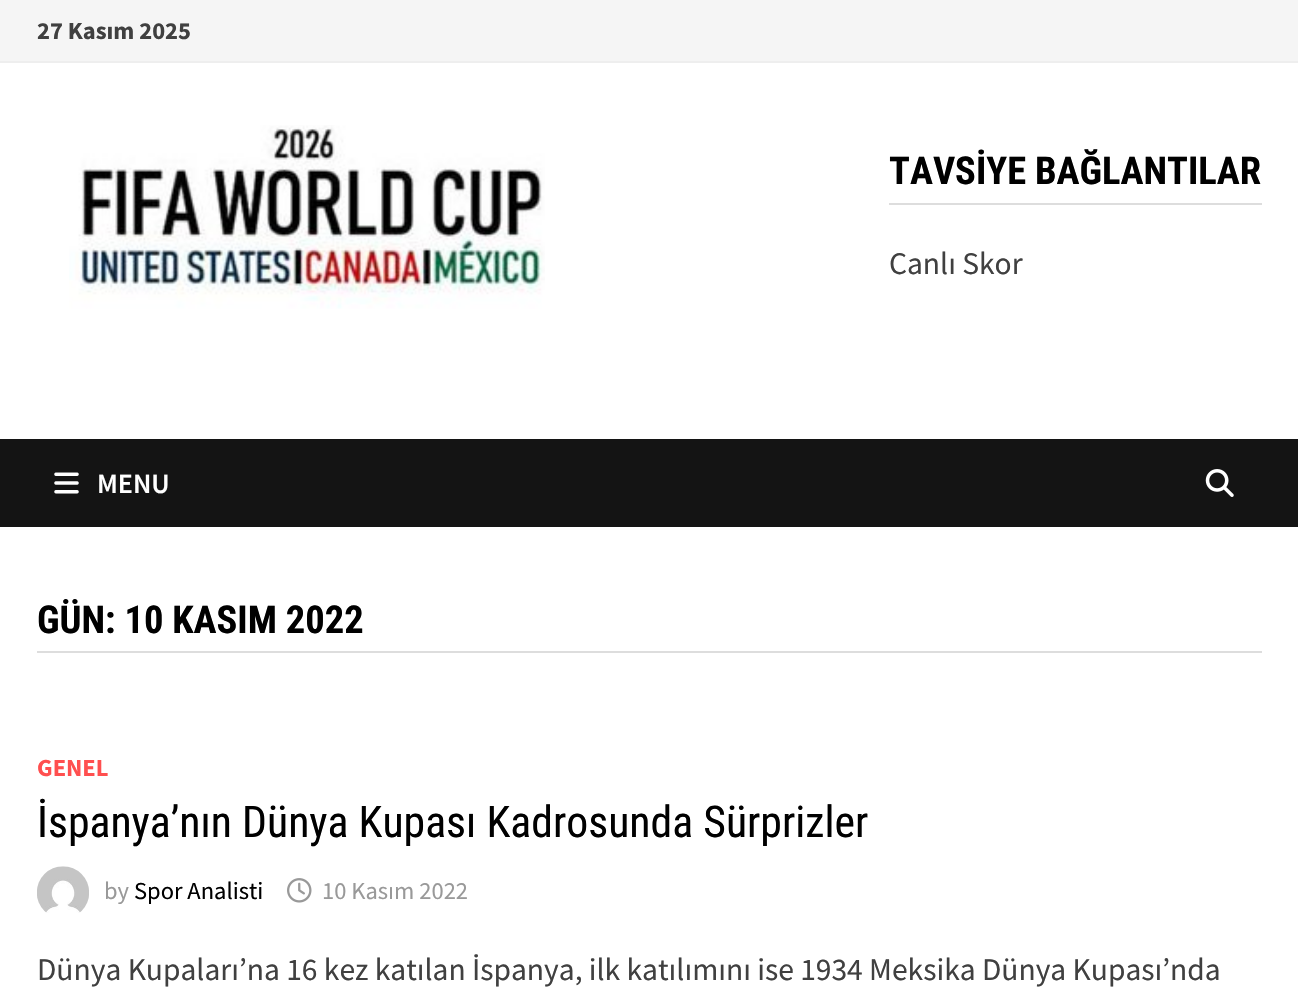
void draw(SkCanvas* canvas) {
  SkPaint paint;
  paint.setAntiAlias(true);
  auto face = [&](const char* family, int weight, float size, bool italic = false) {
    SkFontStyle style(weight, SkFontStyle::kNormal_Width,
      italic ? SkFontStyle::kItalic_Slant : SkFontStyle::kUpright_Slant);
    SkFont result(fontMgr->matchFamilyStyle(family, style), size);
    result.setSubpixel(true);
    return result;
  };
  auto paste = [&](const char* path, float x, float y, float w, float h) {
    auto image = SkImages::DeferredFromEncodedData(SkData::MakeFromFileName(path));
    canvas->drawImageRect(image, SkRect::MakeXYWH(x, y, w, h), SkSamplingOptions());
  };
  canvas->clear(0xffffffff);
  paint.setColor(0xfff5f5f5);
  canvas->drawRect(SkRect::MakeXYWH(0, 0, 1298, 61), paint);
  paint.setColor(0xffeeeeee);
  canvas->drawRect(SkRect::MakeXYWH(0, 61, 1298, 2), paint);
  paste("img/1.png", 69, 125, 476, 184);
  paint.setColor(0xffdddddd);
  canvas->drawRect(SkRect::MakeXYWH(889, 203, 373, 2), paint);
  paint.setColor(0xff141414);
  canvas->drawRect(SkRect::MakeXYWH(0, 439, 1298, 88), paint);
  paste("img/2.png", 54, 472, 25, 22);
  paste("img/3.png", 1205, 469, 29, 28);
  paint.setColor(0xffdddddd);
  canvas->drawRect(SkRect::MakeXYWH(37, 651, 1225, 2), paint);
  paste("img/4.png", 37, 866, 52, 47);
  paste("img/5.png", 287, 878, 25, 25);
  auto f0 = face("Source Sans Pro", 700, 24.5f);
  paint.setColor(0xff404040);
  canvas->drawString("27 Kasım 2025", 37, 39, f0, paint);
  auto f1 = face("Roboto Condensed", 700, 38.5f);
  paint.setColor(0xff000000);
  canvas->drawString("TAVSİYE BAĞLANTILAR", 889, 184, f1, paint);
  auto f2 = face("Source Sans Pro", 400, 31.5f);
  paint.setColor(0xff404040);
  canvas->drawString("Canlı Skor", 889, 274, f2, paint);
  auto f3 = face("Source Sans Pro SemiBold", 600, 28);
  paint.setColor(0xffffffff);
  canvas->drawString("MENU", 97, 493, f3, paint);
  paint.setColor(0xff000000);
  canvas->drawString("GÜN: 10 KASIM 2022", 37, 633, f1, paint);
  paint.setColor(0xffff4f4f);
  canvas->drawString("GENEL", 37, 776, f0, paint);
  auto f4 = face("Roboto Condensed", 400, 43.75f);
  paint.setColor(0xff000000);
  canvas->drawString("İspanya’nın Dünya Kupası Kadrosunda Sürprizler", 37, 837, f4, paint);
  auto f5 = face("Source Sans Pro", 400, 24.5f);
  paint.setColor(0xff999999);
  canvas->drawString("by", 104, 899, f5, paint);
  paint.setColor(0xff000000);
  canvas->drawString("Spor Analisti", 134, 899, f5, paint);
  paint.setColor(0xff999999);
  canvas->drawString("10 Kasım 2022", 322, 899, f5, paint);
  paint.setColor(0xff404040);
  canvas->drawString("Dünya Kupaları’na 16 kez katılan İspanya, ilk katılımını ise 1934 Meksika Dünya Kupası’nda", 37, 980, f2, paint);
}
